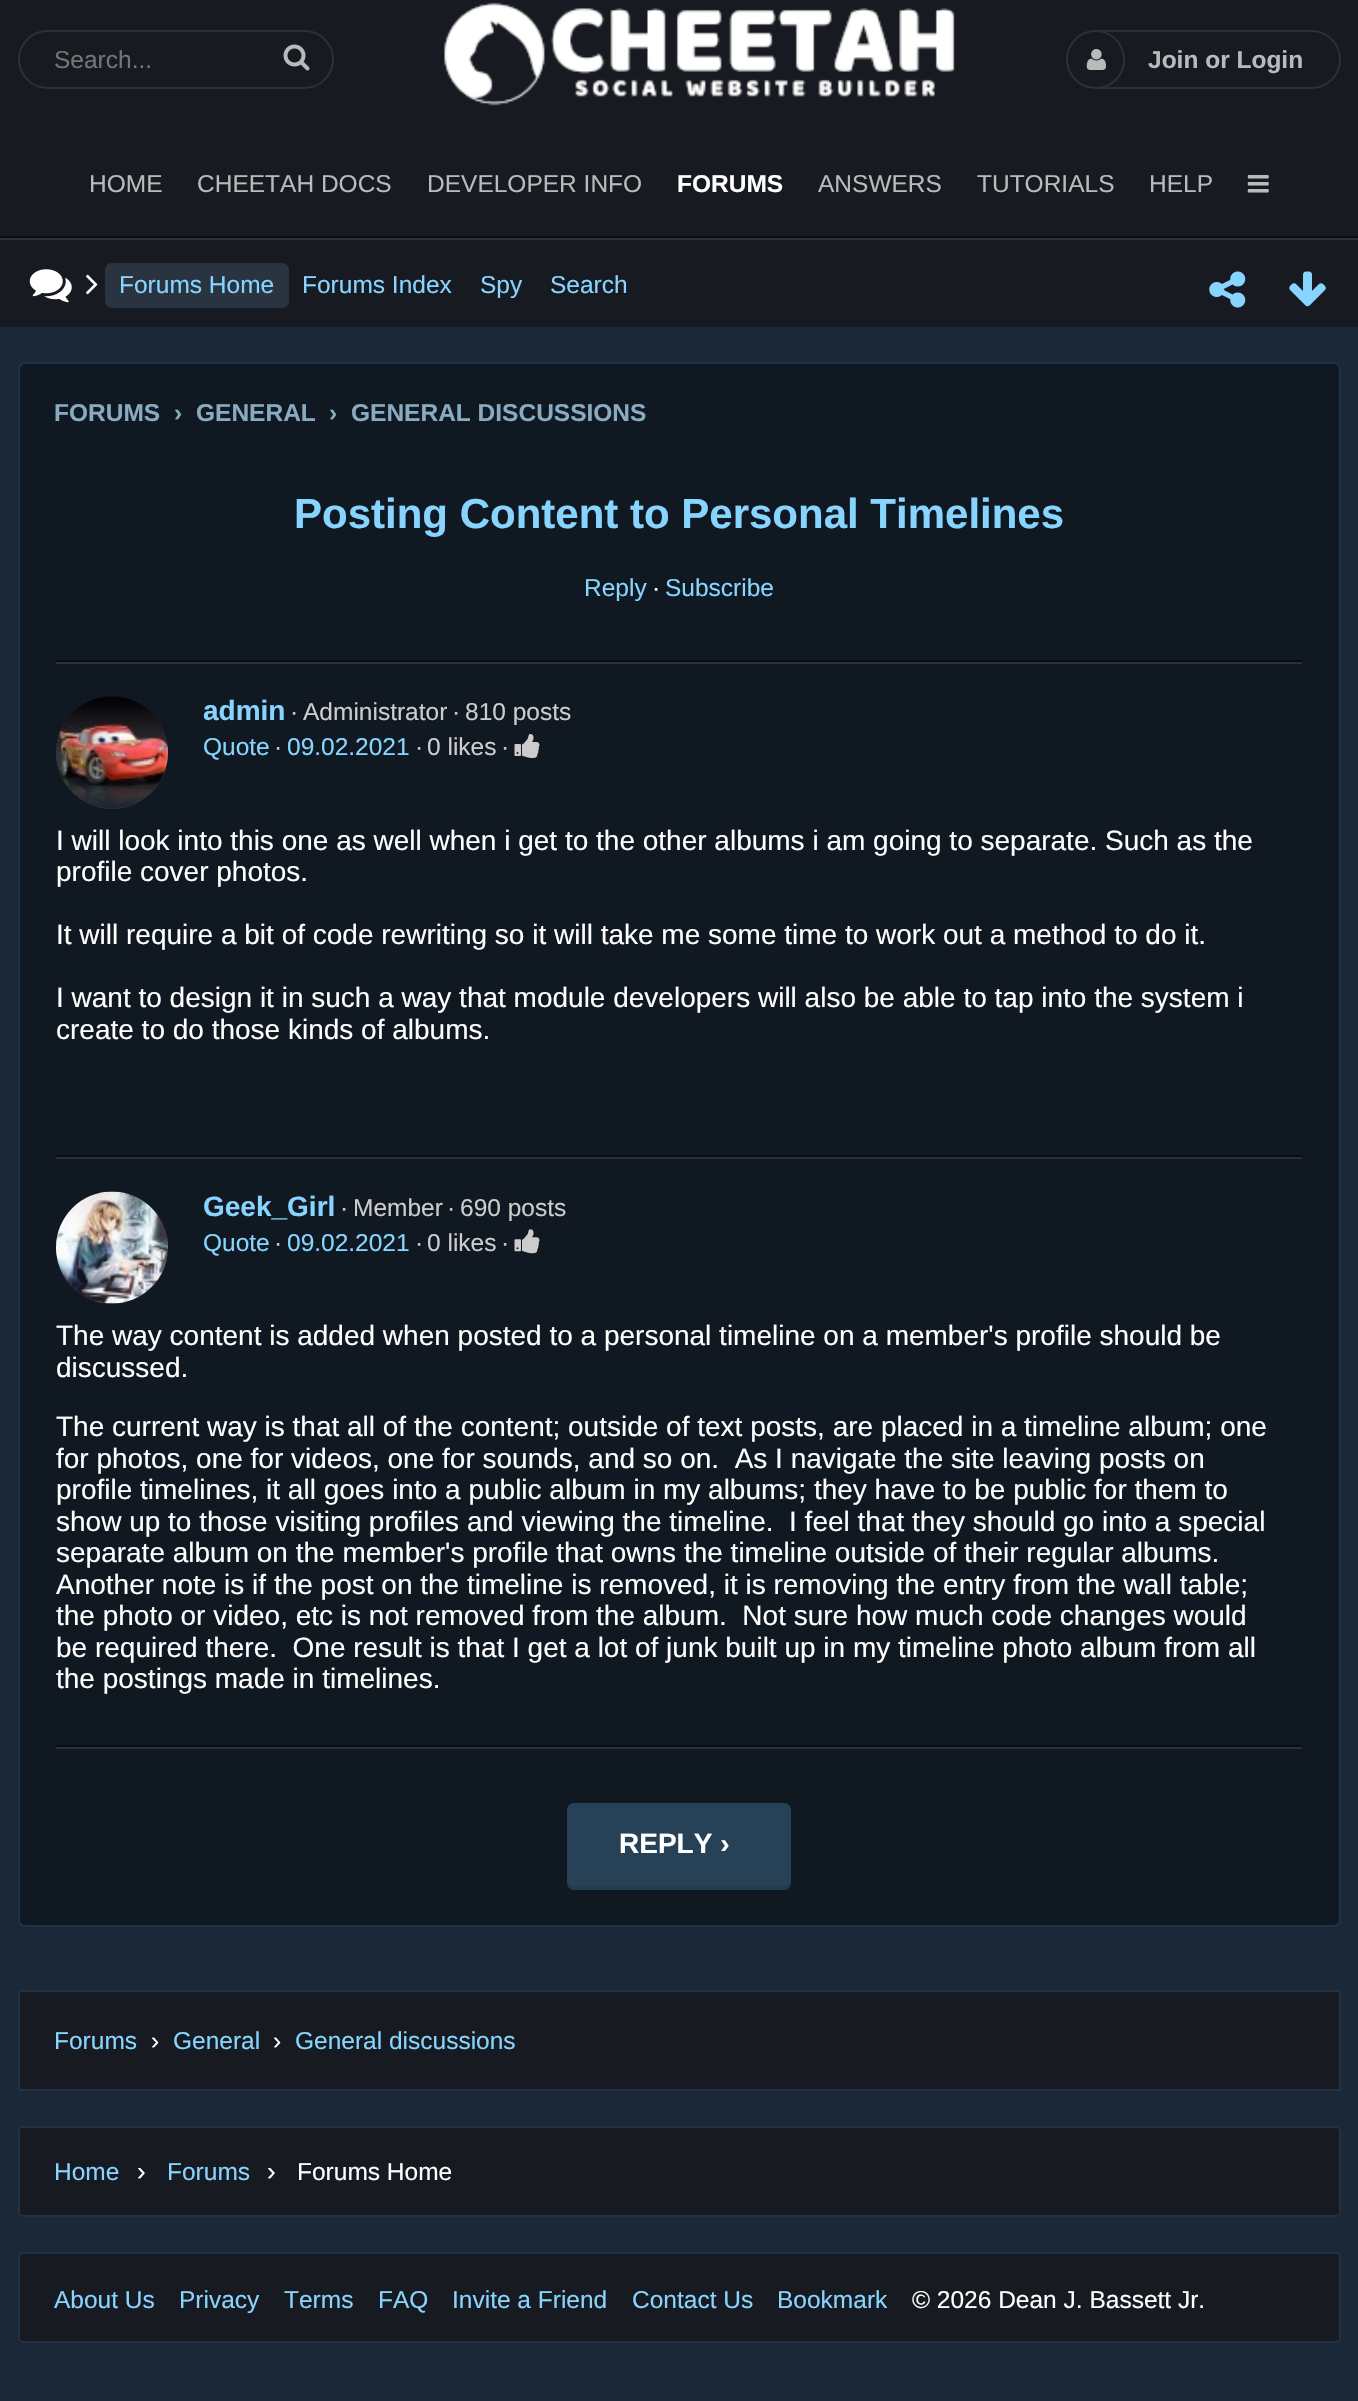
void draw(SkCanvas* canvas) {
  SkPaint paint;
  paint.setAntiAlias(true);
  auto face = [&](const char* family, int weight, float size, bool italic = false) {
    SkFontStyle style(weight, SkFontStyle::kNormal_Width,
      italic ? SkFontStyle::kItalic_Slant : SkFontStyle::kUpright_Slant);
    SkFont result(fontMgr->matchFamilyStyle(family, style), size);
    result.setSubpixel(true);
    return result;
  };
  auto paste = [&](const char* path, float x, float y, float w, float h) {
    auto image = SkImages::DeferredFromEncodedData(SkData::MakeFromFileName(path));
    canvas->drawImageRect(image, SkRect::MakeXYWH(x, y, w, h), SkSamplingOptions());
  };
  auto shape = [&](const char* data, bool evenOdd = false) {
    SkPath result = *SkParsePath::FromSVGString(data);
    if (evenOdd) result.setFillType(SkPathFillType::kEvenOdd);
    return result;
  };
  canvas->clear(0xff1b2838);
  paint.setColor(0xff171a21);
  canvas->drawRect(SkRect::MakeXYWH(0, 0, 1358, 236), paint);
  paint.setStroke(true);
  paint.setStrokeWidth(2);
  paint.setColor(0xff2a2f3c);
  canvas->drawRoundRect(SkRect::MakeXYWH(19, 31, 314, 57), 28.5f, 28.5f, paint);
  paste("img/1.png", 283, 44, 27, 27);
  paste("img/2.png", 444, 2, 511, 104);
  canvas->drawRoundRect(SkRect::MakeXYWH(1067, 31, 273, 57), 28.5f, 28.5f, paint);
  paint.setStroke(false);
  canvas->drawPath(shape("M1096 32H1106C1117 36 1125 47 1125 60C1125 73 1116 85 1103 88H1096C1081 88 1068 75 1068 60C1068 75 1080 87 1096 87C1111 87 1123 75 1123 60C1123 44 1111 32 1096 32Z"), paint);
  paste("img/3.png", 1086, 49, 20, 21);
  paint.setColor(0xff0a0c0f);
  canvas->drawRect(SkRect::MakeXYWH(0, 236, 1358, 2), paint);
  paste("img/4.png", 1247, 175, 22, 18);
  paint.setColor(0xff171a21);
  canvas->drawRect(SkRect::MakeXYWH(0, 240, 1358, 87), paint);
  paint.setColor(0xff2a2f3c);
  canvas->drawRect(SkRect::MakeXYWH(0, 238, 1358, 2), paint);
  paste("img/5.png", 29, 269, 43, 34);
  paste("img/6.png", 86, 274, 12, 21);
  paint.setColor(0xff2a3441);
  canvas->drawRoundRect(SkRect::MakeXYWH(105, 263, 184, 45), 7, 7, paint);
  paste("img/7.png", 1209, 271, 37, 37);
  paste("img/8.png", 1289, 271, 37, 36);
  paint.setColor(0xff101822);
  canvas->drawRoundRect(SkRect::MakeXYWH(19, 363, 1321, 1563), 6, 6, paint);
  paint.setStroke(true);
  paint.setColor(0xff213145);
  canvas->drawRoundRect(SkRect::MakeXYWH(19, 363, 1321, 1563), 6, 6, paint);
  paint.setStroke(false);
  paint.setColor(0xff0a0c0f);
  canvas->drawRect(SkRect::MakeXYWH(56, 660, 1246, 2), paint);
  paint.setColor(0xff2a2f3c);
  canvas->drawRect(SkRect::MakeXYWH(56, 662, 1246, 2), paint);
  canvas->drawCircle(112, 753, 56, paint);
  paste("img/9.png", 56, 696, 112, 112);
  paste("img/10.png", 514, 734, 26, 24);
  paint.setColor(0xff0a0c0f);
  canvas->drawRect(SkRect::MakeXYWH(56, 1155, 1246, 2), paint);
  paint.setColor(0xff2a2f3c);
  canvas->drawRect(SkRect::MakeXYWH(56, 1157, 1246, 2), paint);
  canvas->drawCircle(112, 1248, 56, paint);
  paste("img/11.png", 56, 1191, 112, 113);
  paste("img/12.png", 514, 1229, 26, 25);
  paint.setColor(0xff0a0c0f);
  canvas->drawRect(SkRect::MakeXYWH(56, 1745, 1246, 2), paint);
  paint.setColor(0xff2a2f3c);
  canvas->drawRect(SkRect::MakeXYWH(56, 1747, 1246, 2), paint);
  paint.setColor(0xff274257);
  canvas->drawRoundRect(SkRect::MakeXYWH(567, 1803, 224, 87), 7, 7, paint);
  paint.setColor(0x1a000000);
  canvas->drawPath(shape("M567 1880V1883C567 1887 570 1890 574 1890H784C788 1890 791 1887 791 1883V1880C791 1883 788 1886 784 1886H574C570 1886 567 1883 567 1880Z"), paint);
  paint.setColor(0xff171a21);
  canvas->drawRect(SkRect::MakeXYWH(19, 1991, 1321, 99), paint);
  paint.setStroke(true);
  paint.setColor(0xff213145);
  canvas->drawRect(SkRect::MakeXYWH(19, 1991, 1321, 99), paint);
  paint.setStroke(false);
  paint.setColor(0xff171a21);
  canvas->drawRoundRect(SkRect::MakeXYWH(19, 2127, 1321, 89), 4, 4, paint);
  paint.setStroke(true);
  paint.setColor(0xff213145);
  canvas->drawRoundRect(SkRect::MakeXYWH(19, 2127, 1321, 89), 4, 4, paint);
  paint.setStroke(false);
  paint.setColor(0xff171a21);
  canvas->drawRoundRect(SkRect::MakeXYWH(19, 2253, 1321, 89), 4, 4, paint);
  paint.setStroke(true);
  paint.setColor(0xff213145);
  canvas->drawRoundRect(SkRect::MakeXYWH(19, 2253, 1321, 89), 4, 4, paint);
  auto f0 = face("Liberation Sans", 400, 24.5f);
  paint.setStroke(false);
  paint.setColor(0xff757575);
  canvas->drawString("Search...", 54, 68, f0, paint);
  auto f1 = face("Liberation Sans", 700, 24.5f);
  paint.setColor(0xffb9babc);
  canvas->drawString("Join or Login", 1148, 68, f1, paint);
  {
    const struct { const char* s; float x, y; } items[] = {
      {"HOME", 89, 192},
      {"CHEETAH DOCS", 197, 192},
      {"DEVELOPER INFO", 427, 192},
    };
    for (auto [s, x, y] : items) {
      canvas->drawString(s, x, y, f0, paint);
    }
  }
  paint.setColor(0xffffffff);
  canvas->drawString("FORUMS", 677, 192, f1, paint);
  paint.setColor(0xffb9babc);
  {
    const struct { const char* s; float x, y; } items[] = {
      {"ANSWERS", 818, 192},
      {"TUTORIALS", 977, 192},
      {"HELP", 1149, 192},
    };
    for (auto [s, x, y] : items) {
      canvas->drawString(s, x, y, f0, paint);
    }
  }
  paint.setColor(0xff87d5ff);
  {
    const struct { const char* s; float x, y; } items[] = {
      {"Forums Home", 119, 293},
      {"Forums Index", 302, 293},
      {"Spy", 480, 293},
      {"Search", 550, 293},
    };
    for (auto [s, x, y] : items) {
      canvas->drawString(s, x, y, f0, paint);
    }
  }
  paint.setColor(0xff88abc2);
  {
    const struct { const char* s; float x, y; } items[] = {
      {"FORUMS", 54, 421},
      {"›", 174, 421},
      {"GENERAL", 196, 421},
      {"›", 329, 421},
      {"GENERAL DISCUSSIONS", 351, 421},
    };
    for (auto [s, x, y] : items) {
      canvas->drawString(s, x, y, f1, paint);
    }
  }
  auto f2 = face("Liberation Sans", 700, 42);
  paint.setColor(0xff87d5ff);
  canvas->drawString("Posting Content to Personal Timelines", 294, 528, f2, paint);
  canvas->drawString("Reply", 584, 596, f0, paint);
  paint.setColor(0xffffffff);
  canvas->drawString("·", 652, 596, f0, paint);
  paint.setColor(0xff87d5ff);
  canvas->drawString("Subscribe", 665, 596, f0, paint);
  auto f3 = face("Liberation Sans", 700, 28);
  canvas->drawString("admin", 203, 720, f3, paint);
  paint.setColor(0xffcccccc);
  {
    const struct { const char* s; float x, y; } items[] = {
      {"·", 290, 720},
      {"Administrator", 303, 720},
      {"·", 452, 720},
      {"810 posts", 465, 720},
    };
    for (auto [s, x, y] : items) {
      canvas->drawString(s, x, y, f0, paint);
    }
  }
  paint.setColor(0xff87d5ff);
  canvas->drawString("Quote", 203, 755, f0, paint);
  paint.setColor(0xffcccccc);
  canvas->drawString("·", 274, 755, f0, paint);
  paint.setColor(0xff87d5ff);
  canvas->drawString("09.02.2021", 287, 755, f0, paint);
  paint.setColor(0xffcccccc);
  {
    const struct { const char* s; float x, y; } items[] = {
      {"·", 415, 755},
      {"0 likes", 427, 755},
      {"·", 501, 755},
    };
    for (auto [s, x, y] : items) {
      canvas->drawString(s, x, y, f0, paint);
    }
  }
  auto f4 = face("Liberation Sans", 400, 28);
  paint.setColor(0xffffffff);
  {
    const struct { const char* s; float x, y; } items[] = {
      {"I will look into this one as well when i get to the other albums i am going to separate. Such as the", 56, 850},
      {"profile cover photos.", 56, 881},
      {"It will require a bit of code rewriting so it will take me some time to work out a method to do it.", 56, 944},
      {"I want to design it in such a way that module developers will also be able to tap into the system i", 56, 1007},
      {"create to do those kinds of albums.", 56, 1039},
    };
    for (auto [s, x, y] : items) {
      canvas->drawString(s, x, y, f4, paint);
    }
  }
  paint.setColor(0xff87d5ff);
  canvas->drawString("Geek_Girl", 203, 1216, f3, paint);
  paint.setColor(0xffcccccc);
  {
    const struct { const char* s; float x, y; } items[] = {
      {"·", 340, 1216},
      {"Member", 353, 1216},
      {"·", 447, 1216},
      {"690 posts", 460, 1216},
    };
    for (auto [s, x, y] : items) {
      canvas->drawString(s, x, y, f0, paint);
    }
  }
  paint.setColor(0xff87d5ff);
  canvas->drawString("Quote", 203, 1251, f0, paint);
  paint.setColor(0xffcccccc);
  canvas->drawString("·", 274, 1251, f0, paint);
  paint.setColor(0xff87d5ff);
  canvas->drawString("09.02.2021", 287, 1251, f0, paint);
  paint.setColor(0xffcccccc);
  {
    const struct { const char* s; float x, y; } items[] = {
      {"·", 415, 1251},
      {"0 likes", 427, 1251},
      {"·", 501, 1251},
    };
    for (auto [s, x, y] : items) {
      canvas->drawString(s, x, y, f0, paint);
    }
  }
  paint.setColor(0xffffffff);
  {
    const struct { const char* s; float x, y; } items[] = {
      {"The way content is added when posted to a personal timeline on a member's profile should be", 56, 1345},
      {"discussed.", 56, 1377},
      {"The current way is that all of the content; outside of text posts, are placed in a timeline album; one", 56, 1436},
      {"for photos, one for videos, one for sounds, and so on.  As I navigate the site leaving posts on", 56, 1468},
      {"profile timelines, it all goes into a public album in my albums; they have to be public for them to", 56, 1499},
      {"show up to those visiting profiles and viewing the timeline.  I feel that they should go into a special", 56, 1531},
      {"separate album on the member's profile that owns the timeline outside of their regular albums.", 56, 1562},
      {"Another note is if the post on the timeline is removed, it is removing the entry from the wall table;", 56, 1594},
      {"the photo or video, etc is not removed from the album.  Not sure how much code changes would", 56, 1625},
      {"be required there.  One result is that I get a lot of junk built up in my timeline photo album from all", 56, 1657},
      {"the postings made in timelines.", 56, 1688},
    };
    for (auto [s, x, y] : items) {
      canvas->drawString(s, x, y, f4, paint);
    }
  }
  canvas->drawString("REPLY ›", 619, 1853, f3, paint);
  paint.setColor(0xff87d5ff);
  canvas->drawString("Forums", 54, 2049, f0, paint);
  paint.setColor(0xffffffff);
  canvas->drawString("›", 151, 2049, f0, paint);
  paint.setColor(0xff87d5ff);
  canvas->drawString("General", 173, 2049, f0, paint);
  paint.setColor(0xffffffff);
  canvas->drawString("›", 273, 2049, f0, paint);
  paint.setColor(0xff87d5ff);
  canvas->drawString("General discussions", 295, 2049, f0, paint);
  canvas->drawString("Home", 54, 2180, f0, paint);
  auto f5 = face("Liberation Sans", 400, 26);
  paint.setColor(0xffffffff);
  canvas->drawString("›", 137, 2180, f5, paint);
  paint.setColor(0xff87d5ff);
  canvas->drawString("Forums", 167, 2180, f0, paint);
  paint.setColor(0xffffffff);
  canvas->drawString("›", 267, 2180, f5, paint);
  canvas->drawString("Forums Home", 297, 2180, f0, paint);
  paint.setColor(0xff87d5ff);
  {
    const struct { const char* s; float x, y; } items[] = {
      {"About Us", 54, 2308},
      {"Privacy", 179, 2308},
      {"Terms", 284, 2308},
      {"FAQ", 378, 2308},
      {"Invite a Friend", 452, 2308},
      {"Contact Us", 632, 2308},
      {"Bookmark", 777, 2308},
    };
    for (auto [s, x, y] : items) {
      canvas->drawString(s, x, y, f0, paint);
    }
  }
  paint.setColor(0xffffffff);
  canvas->drawString("© 2026 Dean J. Bassett Jr.", 912, 2308, f0, paint);
}
